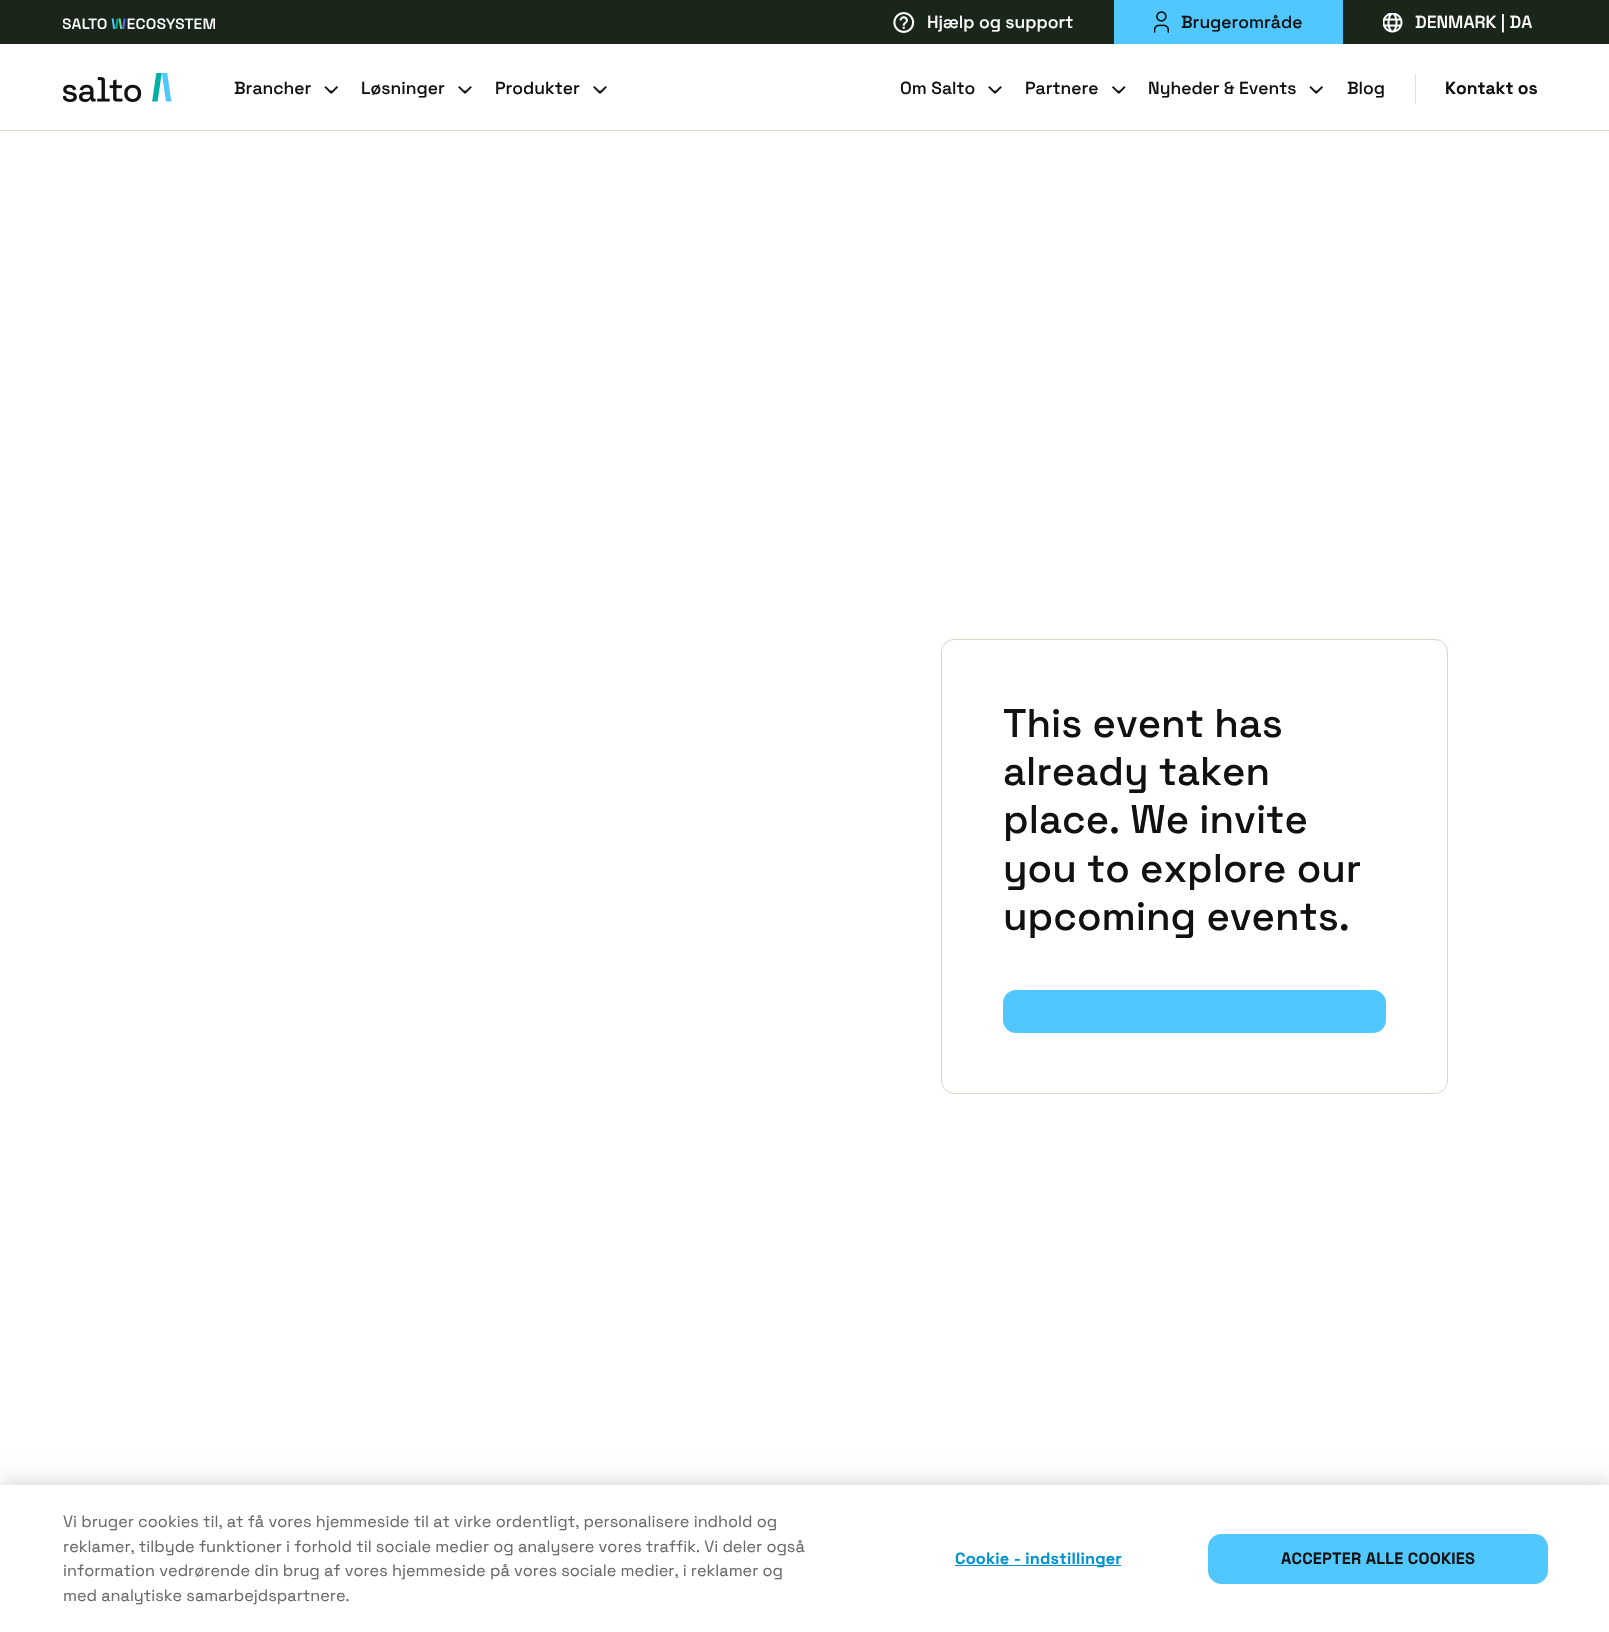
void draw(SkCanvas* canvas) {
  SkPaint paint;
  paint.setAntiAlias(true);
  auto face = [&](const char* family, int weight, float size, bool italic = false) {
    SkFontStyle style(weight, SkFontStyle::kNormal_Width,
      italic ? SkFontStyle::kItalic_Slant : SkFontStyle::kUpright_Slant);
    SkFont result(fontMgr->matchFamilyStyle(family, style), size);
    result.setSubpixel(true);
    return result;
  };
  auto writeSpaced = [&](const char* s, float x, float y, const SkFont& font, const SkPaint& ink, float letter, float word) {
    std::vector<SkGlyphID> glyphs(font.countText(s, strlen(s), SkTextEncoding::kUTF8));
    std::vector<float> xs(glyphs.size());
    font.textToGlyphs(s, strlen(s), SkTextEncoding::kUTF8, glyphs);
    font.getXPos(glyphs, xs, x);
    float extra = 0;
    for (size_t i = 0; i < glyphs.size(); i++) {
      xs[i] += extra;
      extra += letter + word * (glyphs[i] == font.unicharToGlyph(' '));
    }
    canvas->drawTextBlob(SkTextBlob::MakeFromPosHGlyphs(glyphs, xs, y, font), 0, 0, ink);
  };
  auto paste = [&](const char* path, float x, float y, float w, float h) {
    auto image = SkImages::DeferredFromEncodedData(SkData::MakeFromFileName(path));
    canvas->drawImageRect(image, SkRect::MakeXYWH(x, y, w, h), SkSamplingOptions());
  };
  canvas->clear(0xffffffff);
  paint.setColor(0xff1b261b);
  canvas->drawRect(SkRect::MakeXYWH(0, 0, 1609, 44), paint);
  paste("img/1.png", 63, 18, 152, 11);
  paste("img/2.png", 893, 12, 22, 21);
  paint.setColor(0xff50c8ff);
  canvas->drawRect(SkRect::MakeXYWH(1114, 0, 229, 44), paint);
  paste("img/3.png", 1154, 11, 15, 22);
  paste("img/4.png", 1383, 13, 20, 20);
  paint.setColor(0xffdbd5c9);
  canvas->drawRect(SkRect::MakeXYWH(0, 130, 1609, 1), paint);
  paste("img/5.png", 63, 73, 109, 29);
  paste("img/6.png", 324, 86, 14, 8);
  paste("img/7.png", 458, 86, 14, 8);
  paste("img/7.png", 593, 86, 14, 8);
  paste("img/7.png", 988, 86, 14, 8);
  paste("img/8.png", 1112, 86, 14, 8);
  paste("img/6.png", 1309, 86, 14, 8);
  paint.setColor(0xffe1e1e1);
  canvas->drawRect(SkRect::MakeXYWH(1415, 74, 1, 30), paint);
  paint.setStroke(true);
  paint.setStrokeWidth(1);
  paint.setColor(0xffdbd5c9);
  canvas->drawRoundRect(SkRect::MakeXYWH(941.5f, 639.5f, 506, 454), 12.5f, 12.5f, paint);
  paint.setStroke(false);
  paint.setColor(0xff50c8ff);
  canvas->drawRoundRect(SkRect::MakeXYWH(1003, 990, 383, 43), 13, 13, paint);
  paint.setColor(0x33000000);
  paint.setMaskFilter(SkMaskFilter::MakeBlur(kNormal_SkBlurStyle, 11));
  canvas->drawRect(SkRect::MakeXYWH(0, 1485, 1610, 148), paint);
  paint.setMaskFilter(nullptr);
  paint.setColor(0xffffffff);
  canvas->drawRect(SkRect::MakeXYWH(0, 1485, 1609, 147), paint);
  paint.setColor(0xff0092cf);
  canvas->drawRect(SkRect::MakeXYWH(955, 1565, 166, 1), paint);
  paint.setColor(0xff50c8ff);
  canvas->drawRoundRect(SkRect::MakeXYWH(1208.5f, 1534.5f, 339, 49), 12.5f, 12.5f, paint);
  paint.setStroke(true);
  canvas->drawRoundRect(SkRect::MakeXYWH(1208.5f, 1534.5f, 339, 49), 12.5f, 12.5f, paint);
  auto f0 = face("Space Grotesk", 500, 17.5f);
  paint.setStroke(false);
  paint.setColor(0xffffffff);
  canvas->drawString("Hjælp og support", 927, 28, f0, paint);
  paint.setColor(0xff111111);
  canvas->drawString("Brugerområde", 1181, 28, f0, paint);
  paint.setColor(0xffffffff);
  canvas->drawString("DENMARK | DA", 1415, 28, f0, paint);
  paint.setColor(0xff111111);
  {
    const struct { const char* s; float x, y; } items[] = {
      {"Brancher", 234, 94},
      {"Løsninger", 361, 94},
      {"Produkter", 495, 94},
      {"Om Salto", 900, 94},
      {"Partnere", 1025, 94},
      {"Nyheder & Events", 1148, 94},
      {"Blog", 1347, 94},
    };
    for (auto [s, x, y] : items) {
      canvas->drawString(s, x, y, f0, paint);
    }
  }
  auto f1 = face("Space Grotesk", 700, 17.5f);
  canvas->drawString("Kontakt os", 1445, 94, f1, paint);
  auto f2 = face("Space Grotesk", 500, 40);
  {
    const struct { const char* s; float x, y; } items[] = {
      {"This event has", 1003, 737},
      {"already taken", 1003, 785},
      {"place. We invite", 1003, 833},
      {"you to explore our", 1003, 882},
      {"upcoming events.", 1003, 930},
    };
    for (auto [s, x, y] : items) {
      canvas->drawString(s, x, y, f2, paint);
    }
  }
  auto f3 = face("Space Grotesk", 400, 16.25f);
  paint.setColor(0xff696969);
  {
    const struct { const char* s; float x, y; } items[] = {
      {"Vi bruger cookies til, at få vores hjemmeside til at virke ordentligt, personalisere indhold og", 63, 1527},
      {"reklamer, tilbyde funktioner i forhold til sociale medier og analysere vores traffik. Vi deler også", 63, 1552},
      {"information vedrørende din brug af vores hjemmeside på vores sociale medier, i reklamer og", 63, 1576},
      {"med analytiske samarbejdspartnere.", 63, 1601},
    };
    for (auto [s, x, y] : items) {
      canvas->drawString(s, x, y, f3, paint);
    }
  }
  auto f4 = face("Space Grotesk", 700, 16.25f);
  paint.setColor(0xff0092cf);
  writeSpaced("Cookie - indstillinger", 955, 1564, f4, paint, 0.2f, 0);
  paint.setColor(0xff111111);
  writeSpaced("ACCEPTER ALLE COOKIES", 1281, 1564, f4, paint, 0.2f, 0);
}
